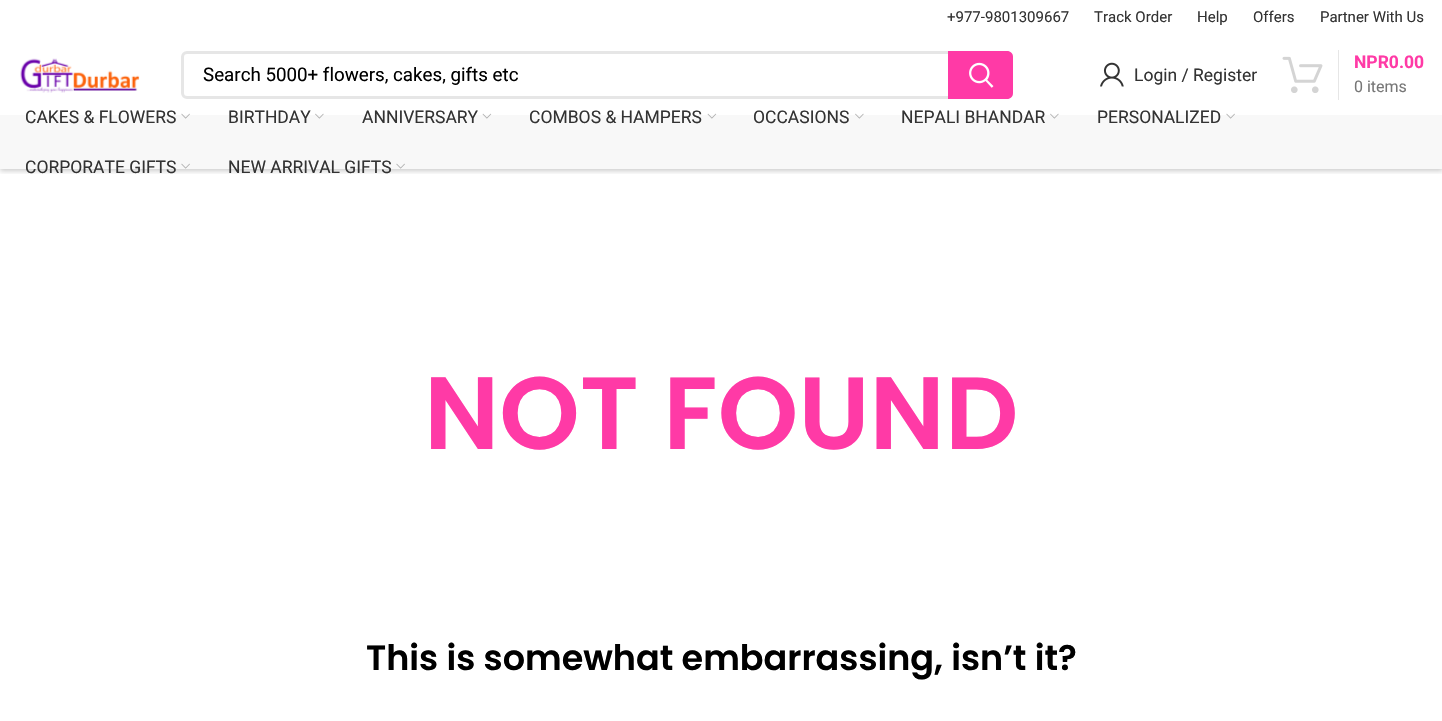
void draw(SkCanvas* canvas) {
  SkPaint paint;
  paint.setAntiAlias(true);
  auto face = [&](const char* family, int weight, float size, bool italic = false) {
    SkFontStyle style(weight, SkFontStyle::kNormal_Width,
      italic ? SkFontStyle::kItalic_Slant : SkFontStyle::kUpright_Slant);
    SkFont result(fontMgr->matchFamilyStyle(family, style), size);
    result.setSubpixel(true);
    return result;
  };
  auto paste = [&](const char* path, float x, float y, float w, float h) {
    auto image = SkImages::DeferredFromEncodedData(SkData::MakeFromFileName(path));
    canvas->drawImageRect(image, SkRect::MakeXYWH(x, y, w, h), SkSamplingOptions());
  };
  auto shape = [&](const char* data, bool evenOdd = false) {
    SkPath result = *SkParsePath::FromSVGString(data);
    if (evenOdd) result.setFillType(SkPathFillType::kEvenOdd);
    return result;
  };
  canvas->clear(0xffffffff);
  canvas->save();
  canvas->clipRect(SkRect::MakeXYWH(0, 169, 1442, 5));
  paint.setColor(0x33000000);
  paint.setMaskFilter(SkMaskFilter::MakeBlur(kNormal_SkBlurStyle, 2.5f));
  canvas->drawRect(SkRect::MakeXYWH(0, 3, 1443, 168), paint);
  paint.setMaskFilter(nullptr);
  canvas->restore();
  paste("img/1.png", 20, 58, 120, 35);
  paint.setStroke(true);
  paint.setStrokeWidth(3);
  paint.setColor(0xffe6e6e6);
  canvas->drawRoundRect(SkRect::MakeXYWH(182.5f, 52.5f, 829, 45), 4.5f, 4.5f, paint);
  paint.setStroke(false);
  paint.setColor(0xffff3aa6);
  canvas->drawPath(shape("M948 51H1007C1010.5 51 1013 53.5 1013 57V93C1013 96.5 1010.5 99 1007 99H948Z"), paint);
  paste("img/2.png", 969, 62, 25, 26);
  paste("img/3.png", 1100, 62, 24, 25);
  paste("img/4.png", 1282, 56, 41, 37);
  paint.setColor(0xffe6e6e6);
  canvas->drawRect(SkRect::MakeXYWH(1338, 50, 1, 50), paint);
  paint.setColor(0xfff8f8f8);
  canvas->drawRect(SkRect::MakeXYWH(0, 115, 1442, 54), paint);
  paste("img/5.png", 181, 113, 9, 6);
  paste("img/6.png", 315, 113, 9, 6);
  paste("img/7.png", 482, 113, 10, 6);
  paste("img/7.png", 707, 113, 10, 6);
  paste("img/6.png", 855, 113, 9, 6);
  paste("img/6.png", 1050, 113, 9, 6);
  paste("img/5.png", 1226, 113, 9, 6);
  paste("img/8.png", 181, 163, 9, 6);
  paste("img/8.png", 396, 163, 9, 6);
  auto f0 = face("Roboto", 400, 15);
  paint.setColor(0xff333333);
  {
    const struct { const char* s; float x, y; } items[] = {
      {"+977-9801309667", 947, 22},
      {"Track Order", 1094, 22},
      {"Help", 1197, 22},
      {"Offers", 1253, 22},
      {"Partner With Us", 1320, 22},
    };
    for (auto [s, x, y] : items) {
      canvas->drawString(s, x, y, f0, paint);
    }
  }
  auto f1 = face("Roboto", 400, 18.75f);
  paint.setColor(0xff000000);
  canvas->drawString("Search 5000+ flowers, cakes, gifts etc", 203, 81, f1, paint);
  auto f2 = face("Roboto", 400, 17.5f);
  paint.setColor(0xff333333);
  canvas->drawString("Login / Register", 1134, 81, f2, paint);
  auto f3 = face("Roboto", 700, 17.5f);
  paint.setColor(0xffff3aa6);
  canvas->drawString("NPR0.00", 1354, 68, f3, paint);
  auto f4 = face("Roboto", 400, 16);
  paint.setColor(0xff777777);
  canvas->drawString("0 items", 1354, 92, f4, paint);
  paint.setColor(0xff333333);
  {
    const struct { const char* s; float x, y; } items[] = {
      {"CAKES & FLOWERS", 25, 123},
      {"BIRTHDAY", 228, 123},
      {"ANNIVERSARY", 362, 123},
      {"COMBOS & HAMPERS", 529, 123},
      {"OCCASIONS", 753, 123},
      {"NEPALI BHANDAR", 901, 123},
      {"PERSONALIZED", 1097, 123},
      {"CORPORATE GIFTS", 25, 173},
      {"NEW ARRIVAL GIFTS", 228, 173},
    };
    for (auto [s, x, y] : items) {
      canvas->drawString(s, x, y, f2, paint);
    }
  }
  auto f5 = face("Poppins", 600, 102.5f);
  paint.setColor(0xffff3aa6);
  canvas->drawString("NOT FOUND", 424, 449, f5, paint);
  auto f6 = face("Poppins", 600, 35);
  paint.setColor(0xff000000);
  canvas->drawString("This is somewhat embarrassing, isn’t it?", 366, 670, f6, paint);
}
